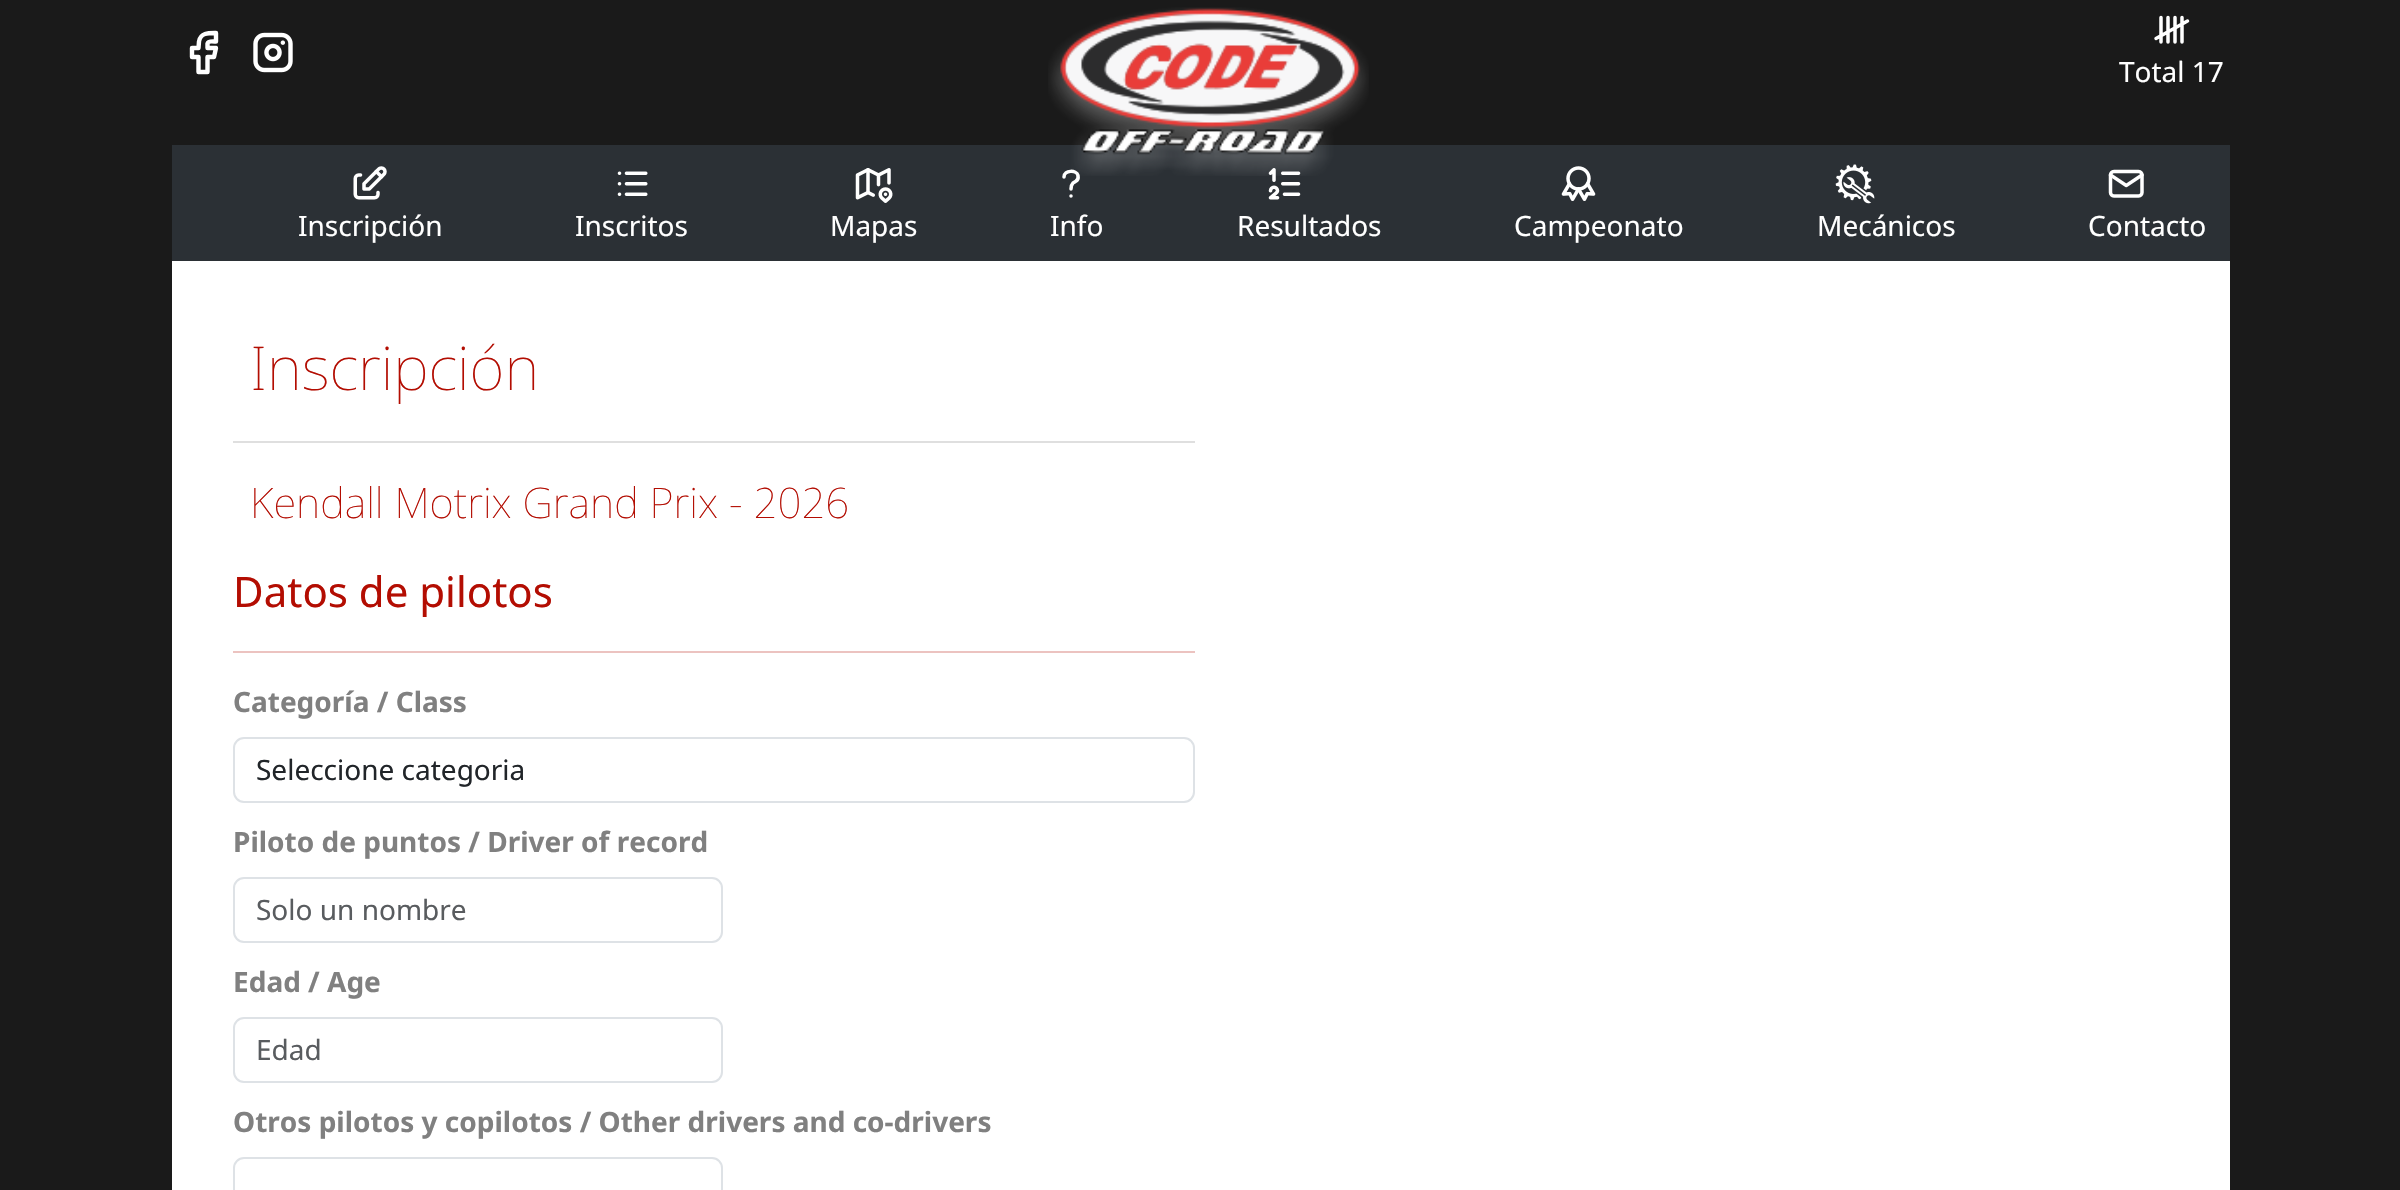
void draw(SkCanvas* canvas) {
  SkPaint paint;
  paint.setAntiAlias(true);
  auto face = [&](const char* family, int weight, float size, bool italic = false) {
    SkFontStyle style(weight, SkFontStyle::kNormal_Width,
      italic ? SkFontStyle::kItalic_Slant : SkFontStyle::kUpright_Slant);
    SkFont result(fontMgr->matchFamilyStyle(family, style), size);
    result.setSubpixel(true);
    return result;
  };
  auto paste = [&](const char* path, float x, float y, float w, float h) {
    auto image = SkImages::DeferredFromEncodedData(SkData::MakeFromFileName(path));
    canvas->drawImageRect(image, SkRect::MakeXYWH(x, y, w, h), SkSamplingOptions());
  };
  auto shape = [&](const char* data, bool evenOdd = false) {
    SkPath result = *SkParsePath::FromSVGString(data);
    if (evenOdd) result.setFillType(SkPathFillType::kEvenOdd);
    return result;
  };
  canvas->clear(0xff1a1a1a);
  paint.setStroke(true);
  paint.setStrokeWidth(4.4f);
  paint.setStrokeCap(SkPaint::kRound_Cap);
  paint.setStrokeJoin(SkPaint::kRound_Join);
  paint.setColor(0xffffffff);
  canvas->drawPath(shape("M192 48V57H198.5V72H207.5V57H214L216 48H207.5V43.5C208 40.5 214 41.5 216 41.5V33C209 33 200.5 32.5 199 41.5L198.5 48H192"), paint);
  paste("img/1.png", 253, 32, 40, 41);
  paint.setStroke(false);
  paint.setColor(0xff2b3035);
  canvas->drawRect(SkRect::MakeXYWH(172, 145, 2058, 116), paint);
  paint.setStroke(true);
  paint.setStrokeWidth(3.5f);
  paint.setColor(0xffffffff);
  canvas->drawPath(shape("M1064 177C1064 170 1076.5 169.5 1078 175.5C1078.5 178 1077.5 180.5 1075.5 181.5L1073 183C1071.5 184.5 1071 187 1071 189M1071 196H1071"), paint);
  paste("img/6.png", 1268, 168, 33, 32);
  paste("img/2.png", 1048, 7, 321, 169);
  canvas->drawPath(shape("M2161 17.5V42M2168 17.5V42M2175 17.5V42M2182 17.5V42M2156 38.5L2187.5 21"), paint);
  paste("img/3.png", 353, 166, 34, 34);
  paste("img/4.png", 617, 171, 31, 25);
  paste("img/5.png", 855, 168, 38, 35);
  paste("img/7.png", 1561, 166, 35, 35);
  paste("img/8.png", 1835, 164, 40, 40);
  paste("img/9.png", 2108, 169, 36, 29);
  paint.setStroke(false);
  {
    const struct { float x, y, w, h; SkColor color; } items[] = {
      {172, 261, 2058, 929, 0xffffffff},
      {233, 441, 962, 2, 0xffdfdfdf},
      {233, 651, 962, 2, 0xffecc3c0},
    };
    for (auto [x, y, w, h, color] : items) {
      paint.setColor(color);
      canvas->drawRect(SkRect::MakeXYWH(x, y, w, h), paint);
    }
  }
  paint.setStroke(true);
  paint.setStrokeWidth(2);
  paint.setStrokeCap(SkPaint::kButt_Cap);
  paint.setStrokeJoin(SkPaint::kMiter_Join);
  paint.setColor(0xffdee2e6);
  canvas->drawRoundRect(SkRect::MakeXYWH(234, 738, 960, 64), 10, 10, paint);
  canvas->drawRoundRect(SkRect::MakeXYWH(234, 878, 488, 64), 10, 10, paint);
  canvas->drawRoundRect(SkRect::MakeXYWH(234, 1018, 488, 64), 10, 10, paint);
  canvas->drawRoundRect(SkRect::MakeXYWH(234, 1158, 488, 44), 10, 10, paint);
  auto f0 = face("Noto Sans", 400, 28);
  paint.setStroke(false);
  paint.setColor(0xffffffff);
  {
    const struct { const char* s; float x, y; } items[] = {
      {"Total 17", 2119, 82},
      {"Inscripción", 298, 236},
      {"Inscritos", 575, 236},
      {"Mapas", 830, 236},
      {"Info", 1050, 236},
      {"Resultados", 1237, 236},
      {"Campeonato", 1514, 236},
      {"Mecánicos", 1817, 236},
      {"Contacto", 2088, 236},
    };
    for (auto [s, x, y] : items) {
      canvas->drawString(s, x, y, f0, paint);
    }
  }
  auto f1 = face("Noto Sans", 100, 60.5f);
  paint.setColor(0xffb30d02);
  canvas->drawString("Inscripción", 250, 390, f1, paint);
  auto f2 = face("Noto Sans", 100, 42);
  canvas->drawString("Kendall Motrix Grand Prix - 2026", 250, 518, f2, paint);
  auto f3 = face("Noto Sans", 400, 42);
  canvas->drawString("Datos de pilotos", 233, 607, f3, paint);
  auto f4 = face("Noto Sans", 700, 28);
  paint.setColor(0xff808080);
  canvas->drawString("Categoría / Class", 233, 712, f4, paint);
  paint.setColor(0xff212529);
  canvas->drawString("Seleccione categoria", 256, 780, f0, paint);
  paint.setColor(0xff808080);
  canvas->drawString("Piloto de puntos / Driver of record", 233, 852, f4, paint);
  paint.setColor(0xff595c5f);
  canvas->drawString("Solo un nombre", 256, 920, f0, paint);
  paint.setColor(0xff808080);
  canvas->drawString("Edad / Age", 233, 992, f4, paint);
  paint.setColor(0xff595c5f);
  canvas->drawString("Edad", 256, 1060, f0, paint);
  paint.setColor(0xff808080);
  canvas->drawString("Otros pilotos y copilotos / Other drivers and co-drivers", 233, 1132, f4, paint);
}
